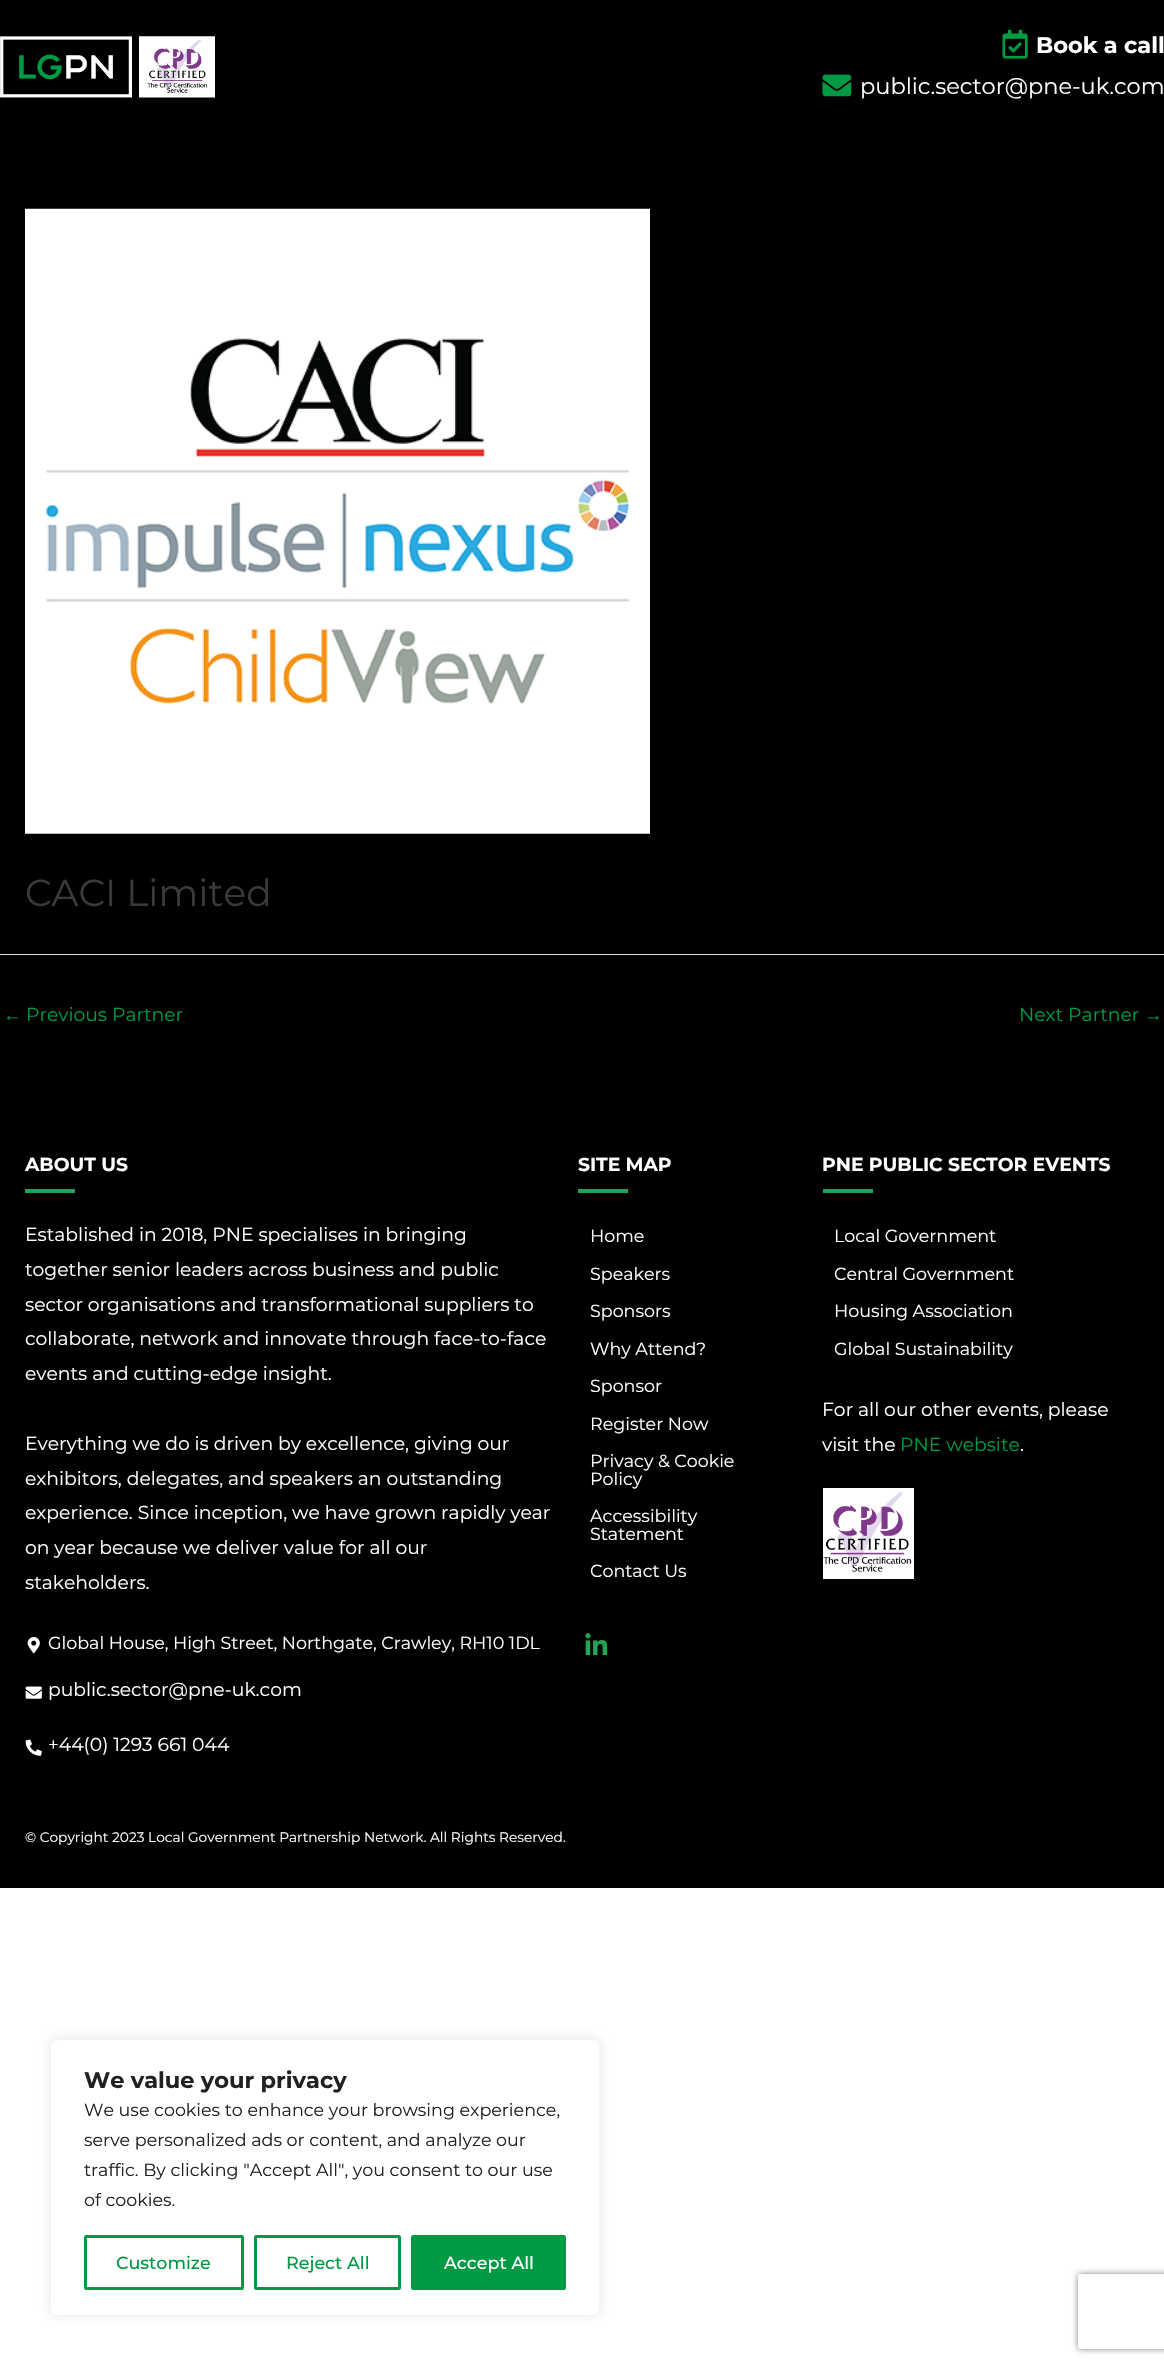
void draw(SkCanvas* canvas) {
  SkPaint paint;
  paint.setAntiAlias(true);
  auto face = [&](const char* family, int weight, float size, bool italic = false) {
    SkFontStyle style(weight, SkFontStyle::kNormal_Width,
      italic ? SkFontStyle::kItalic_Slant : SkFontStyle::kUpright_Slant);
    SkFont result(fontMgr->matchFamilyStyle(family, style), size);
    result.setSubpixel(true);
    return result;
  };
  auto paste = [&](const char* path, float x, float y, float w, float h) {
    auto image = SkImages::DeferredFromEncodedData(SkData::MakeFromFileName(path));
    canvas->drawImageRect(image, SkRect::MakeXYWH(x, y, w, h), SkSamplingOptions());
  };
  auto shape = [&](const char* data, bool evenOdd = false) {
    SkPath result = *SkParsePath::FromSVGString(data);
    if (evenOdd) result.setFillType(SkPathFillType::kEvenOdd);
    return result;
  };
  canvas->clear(0xffffffff);
  paint.setColor(0xff000000);
  canvas->drawRect(SkRect::MakeXYWH(0, 0, 1164, 1888), paint);
  paste("img/1.png", 0, 36, 215, 62);
  paste("img/2.png", 1002, 29, 26, 30);
  paste("img/3.png", 822, 74, 30, 23);
  paste("img/4.png", 25, 208, 625, 626);
  paint.setColor(0xffdddddd);
  canvas->drawRect(SkRect::MakeXYWH(0, 954, 1164, 1), paint);
  paint.setColor(0xff23a455);
  canvas->drawRect(SkRect::MakeXYWH(25, 1189, 50, 4), paint);
  paste("img/5.png", 27, 1637, 13, 17);
  paste("img/6.png", 25, 1686, 17, 13);
  paste("img/7.png", 25, 1739, 17, 17);
  canvas->drawRect(SkRect::MakeXYWH(578, 1189, 50, 4), paint);
  paste("img/8.png", 585, 1633, 23, 22);
  canvas->drawRect(SkRect::MakeXYWH(823, 1189, 50, 4), paint);
  paint.setColor(0xffffffff);
  canvas->drawRect(SkRect::MakeXYWH(823, 1488, 91, 91), paint);
  paste("img/9.png", 823, 1491, 89, 81);
  canvas->save();
  canvas->clipPath(shape("M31 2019H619V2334H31ZM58 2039H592C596.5 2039 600 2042.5 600 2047V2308C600 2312.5 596.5 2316 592 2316H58C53.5 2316 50 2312.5 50 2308V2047C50 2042.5 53.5 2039 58 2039Z", true), true);
  paint.setColor(0x4dacabab);
  paint.setMaskFilter(SkMaskFilter::MakeBlur(kNormal_SkBlurStyle, 6));
  canvas->drawRoundRect(SkRect::MakeXYWH(50, 2038, 550, 277), 8, 8, paint);
  paint.setMaskFilter(nullptr);
  canvas->restore();
  paint.setStroke(true);
  paint.setStrokeWidth(1);
  paint.setColor(0xfff4f4f4);
  canvas->drawRoundRect(SkRect::MakeXYWH(50.5f, 2039.5f, 549, 276), 7.5f, 7.5f, paint);
  paint.setStrokeWidth(3);
  paint.setColor(0xff009a44);
  canvas->drawRoundRect(SkRect::MakeXYWH(85.5f, 2236.5f, 157, 52), 1, 1, paint);
  canvas->drawRoundRect(SkRect::MakeXYWH(255.5f, 2236.5f, 144, 52), 1, 1, paint);
  paint.setStroke(false);
  canvas->drawRoundRect(SkRect::MakeXYWH(412.5f, 2236.5f, 152, 52), 1, 1, paint);
  paint.setStroke(true);
  canvas->drawRoundRect(SkRect::MakeXYWH(412.5f, 2236.5f, 152, 52), 1, 1, paint);
  canvas->save();
  canvas->clipPath(shape("M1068 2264H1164V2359H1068ZM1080.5 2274H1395.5C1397 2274 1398 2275 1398 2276.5V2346.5C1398 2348 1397 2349 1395.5 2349H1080.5C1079 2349 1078 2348 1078 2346.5V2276.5C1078 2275 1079 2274 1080.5 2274Z", true), true);
  paint.setStroke(false);
  paint.setColor(0xff808080);
  paint.setMaskFilter(SkMaskFilter::MakeBlur(kNormal_SkBlurStyle, 3));
  canvas->drawRoundRect(SkRect::MakeXYWH(1078, 2274, 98, 75), 2.5f, 2.5f, paint);
  paint.setMaskFilter(nullptr);
  canvas->restore();
  auto f0 = face("Montserrat", 700, 22.5f);
  paint.setColor(0xffffffff);
  canvas->drawString("Book a call", 1036, 53, f0, paint);
  auto f1 = face("Montserrat", 400, 22.5f);
  canvas->drawString("public.sector@pne-uk.com", 860, 94, f1, paint);
  auto f2 = face("Montserrat", 400, 37.5f);
  paint.setColor(0xff3a3a3a);
  canvas->drawString("CACI Limited", 25, 906, f2, paint);
  auto f3 = face("Liberation Sans", 400, 18.75f);
  paint.setColor(0xff009a44);
  canvas->drawString("←", 3, 1021, f3, paint);
  auto f4 = face("Montserrat", 400, 18.75f);
  canvas->drawString("Previous Partner", 26, 1021, f4, paint);
  canvas->drawString("Next Partner", 1019, 1021, f4, paint);
  canvas->drawString("→", 1144, 1021, f3, paint);
  auto f5 = face("Montserrat", 700, 18.75f);
  paint.setColor(0xffffffff);
  canvas->drawString("ABOUT US", 25, 1171, f5, paint);
  {
    const struct { const char* s; float x, y; } items[] = {
      {"Established in 2018, PNE specialises in bringing", 25, 1241},
      {"together senior leaders across business and public", 25, 1276},
      {"sector organisations and transformational suppliers to", 25, 1311},
      {"collaborate, network and innovate through face-to-face", 25, 1345},
      {"events and cutting-edge insight.", 25, 1380},
      {"Everything we do is driven by excellence, giving our", 25, 1450},
      {"exhibitors, delegates, and speakers an outstanding", 25, 1485},
      {"experience. Since inception, we have grown rapidly year", 25, 1519},
      {"on year because we deliver value for all our", 25, 1554},
      {"stakeholders.", 25, 1589},
    };
    for (auto [s, x, y] : items) {
      canvas->drawString(s, x, y, f4, paint);
    }
  }
  auto f6 = face("Montserrat", 400, 17.5f);
  canvas->drawString("Global House, High Street, Northgate, Crawley, RH10 1DL", 48, 1649, f6, paint);
  canvas->drawString("public.sector@pne-uk.com", 48, 1696, f4, paint);
  canvas->drawString("+44(0) 1293 661 044", 48, 1751, f4, paint);
  canvas->drawString("SITE MAP", 578, 1171, f5, paint);
  {
    const struct { const char* s; float x, y; } items[] = {
      {"Home", 590, 1242},
      {"Speakers", 590, 1280},
      {"Sponsors", 590, 1317},
      {"Why Attend?", 590, 1355},
      {"Sponsor", 590, 1392},
      {"Register Now", 590, 1430},
      {"Privacy & Cookie", 590, 1467},
      {"Policy", 590, 1485},
      {"Accessibility", 590, 1522},
      {"Statement", 590, 1540},
      {"Contact Us", 590, 1577},
    };
    for (auto [s, x, y] : items) {
      canvas->drawString(s, x, y, f6, paint);
    }
  }
  canvas->drawString("PNE PUBLIC SECTOR EVENTS", 822, 1171, f5, paint);
  {
    const struct { const char* s; float x, y; } items[] = {
      {"Local Government", 834, 1242},
      {"Central Government", 834, 1280},
      {"Housing Association", 834, 1317},
      {"Global Sustainability", 834, 1355},
    };
    for (auto [s, x, y] : items) {
      canvas->drawString(s, x, y, f6, paint);
    }
  }
  canvas->drawString("For all our other events, please", 822, 1416, f4, paint);
  canvas->drawString("visit the", 822, 1451, f4, paint);
  paint.setColor(0xff009a44);
  canvas->drawString("PNE website", 900, 1451, f4, paint);
  paint.setColor(0xffffffff);
  canvas->drawString(".", 1020, 1451, f4, paint);
  auto f7 = face("Montserrat", 400, 13.75f);
  canvas->drawString("© Copyright 2023 Local Government Partnership Network. All Rights Reserved.", 25, 1842, f7, paint);
  paint.setColor(0xff212121);
  canvas->drawString("We value your privacy", 84, 2088, f0, paint);
  {
    const struct { const char* s; float x, y; } items[] = {
      {"We use cookies to enhance your browsing experience,", 84, 2116},
      {"serve personalized ads or content, and analyze our", 84, 2146},
      {"traffic. By clicking \"Accept All\", you consent to our use", 84, 2176},
      {"of cookies.", 84, 2206},
    };
    for (auto [s, x, y] : items) {
      canvas->drawString(s, x, y, f6, paint);
    }
  }
  auto f8 = face("Montserrat", 500, 17.5f);
  paint.setColor(0xff009a44);
  canvas->drawString("Customize", 116, 2269, f8, paint);
  canvas->drawString("Reject All", 286, 2269, f8, paint);
  paint.setColor(0xffffffff);
  canvas->drawString("Accept All", 444, 2269, f8, paint);
}
